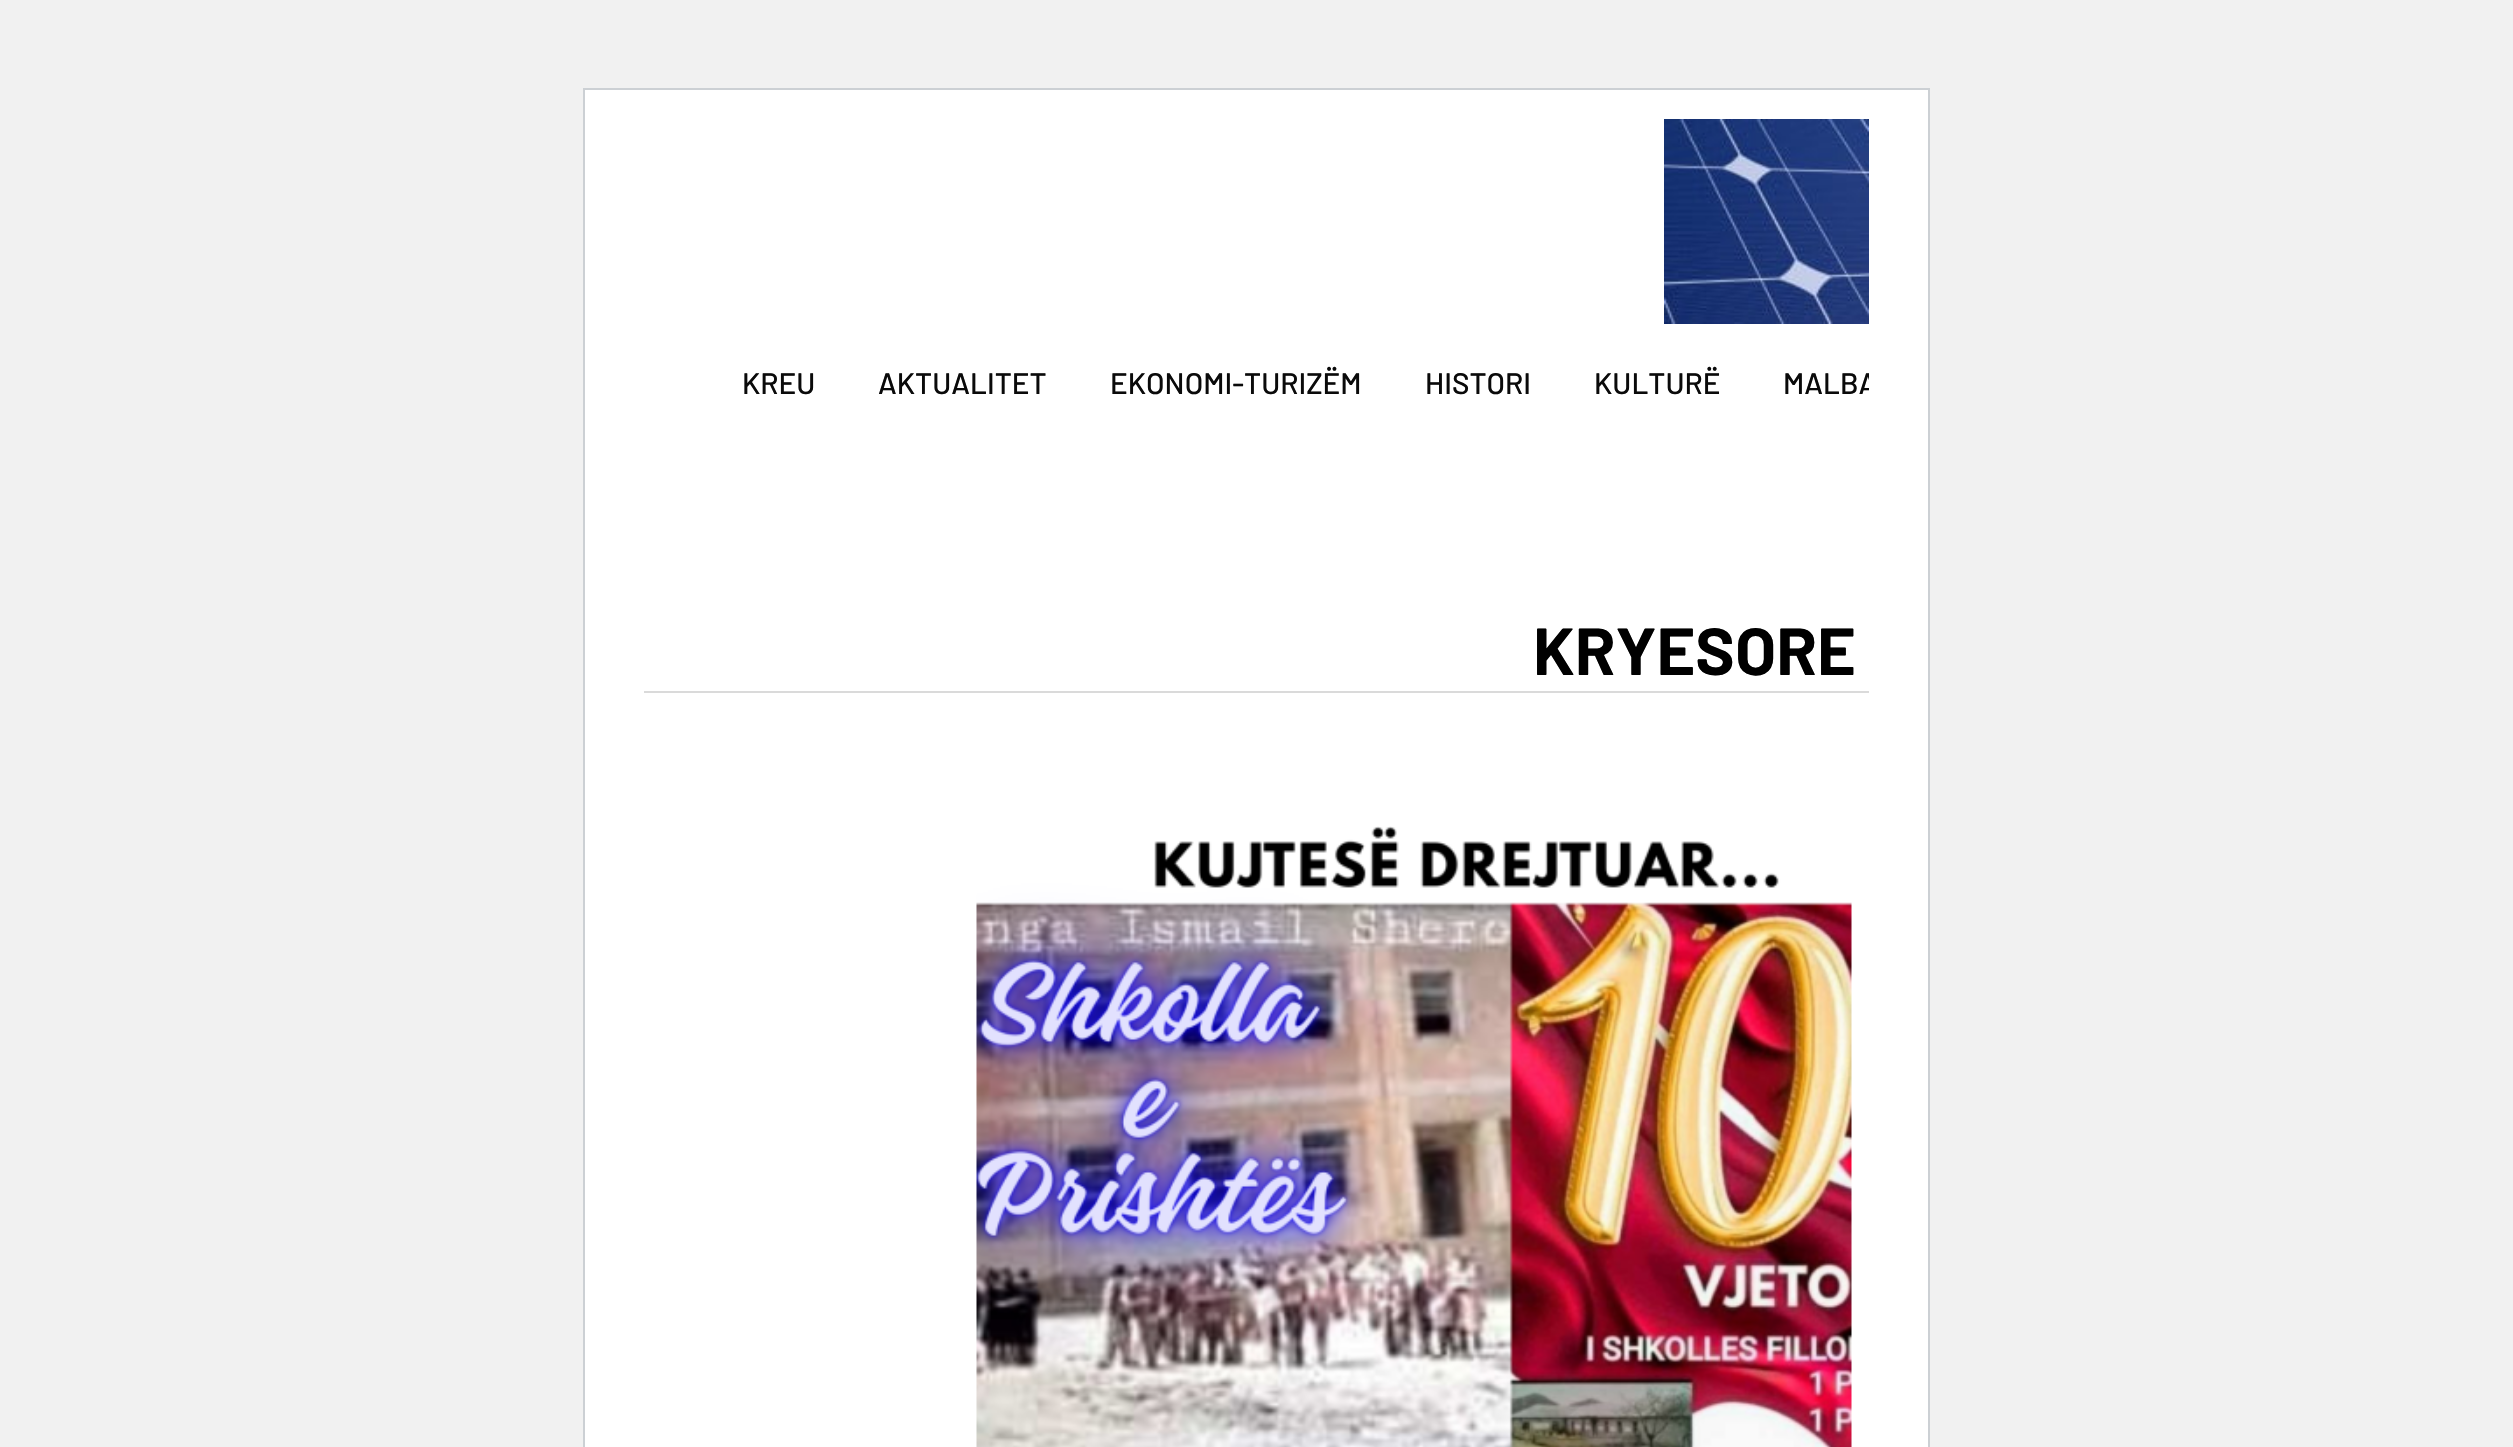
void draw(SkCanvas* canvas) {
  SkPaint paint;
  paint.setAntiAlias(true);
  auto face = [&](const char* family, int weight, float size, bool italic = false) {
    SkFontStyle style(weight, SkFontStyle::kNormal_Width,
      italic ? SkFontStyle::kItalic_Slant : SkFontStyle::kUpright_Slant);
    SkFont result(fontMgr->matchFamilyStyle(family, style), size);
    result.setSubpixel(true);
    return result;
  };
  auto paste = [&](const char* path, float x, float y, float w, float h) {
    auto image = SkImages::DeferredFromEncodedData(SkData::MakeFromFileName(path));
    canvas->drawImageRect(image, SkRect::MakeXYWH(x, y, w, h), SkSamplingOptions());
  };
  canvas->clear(0xfff1f1f1);
  paint.setColor(0xffffffff);
  canvas->drawRect(SkRect::MakeXYWH(584, 89, 1345, 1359), paint);
  paint.setStroke(true);
  paint.setStrokeWidth(2);
  paint.setColor(0xffccd0d4);
  canvas->drawRect(SkRect::MakeXYWH(584, 89, 1345, 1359), paint);
  paste("img/1.png", 1664, 119, 205, 205);
  paint.setStroke(false);
  paint.setColor(0xffdadada);
  canvas->drawRect(SkRect::MakeXYWH(644, 691, 1225, 2), paint);
  paste("img/2.png", 976, 826, 876, 621);
  auto f0 = face("Barlow", 500, 29.75f);
  paint.setColor(0xff0a0a0a);
  {
    const struct { const char* s; float x, y; } items[] = {
      {"KREU", 742, 394},
      {"AKTUALITET", 878, 394},
      {"EKONOMI-TURIZËM", 1110, 394},
      {"HISTORI", 1425, 394},
      {"KULTURË", 1594, 394},
    };
    for (auto [s, x, y] : items) {
      canvas->drawString(s, x, y, f0, paint);
    }
  }
  canvas->save();
  canvas->clipRect(SkRect::MakeXYWH(644, 119, 1225, 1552));
  canvas->drawString("MALBA", 1783, 394, f0, paint);
  canvas->restore();
  auto f1 = face("Barlow", 700, 66.5f);
  paint.setColor(0xff000000);
  canvas->drawString("KRYESORE", 1533, 675, f1, paint);
}
